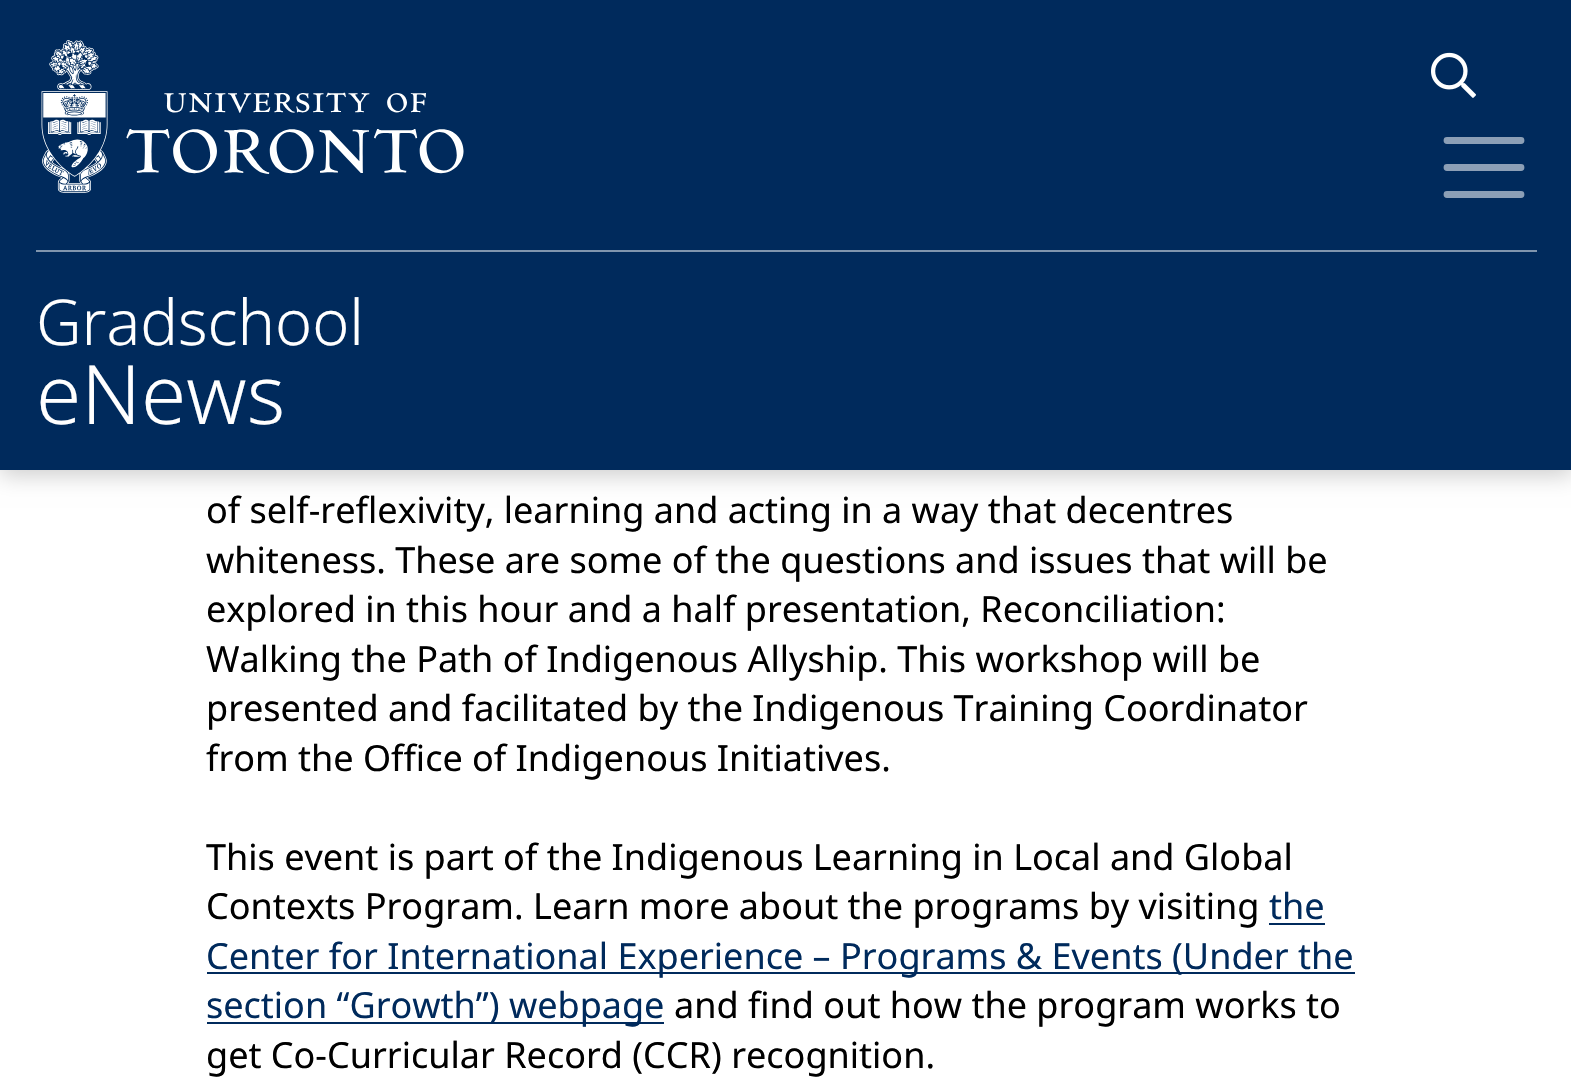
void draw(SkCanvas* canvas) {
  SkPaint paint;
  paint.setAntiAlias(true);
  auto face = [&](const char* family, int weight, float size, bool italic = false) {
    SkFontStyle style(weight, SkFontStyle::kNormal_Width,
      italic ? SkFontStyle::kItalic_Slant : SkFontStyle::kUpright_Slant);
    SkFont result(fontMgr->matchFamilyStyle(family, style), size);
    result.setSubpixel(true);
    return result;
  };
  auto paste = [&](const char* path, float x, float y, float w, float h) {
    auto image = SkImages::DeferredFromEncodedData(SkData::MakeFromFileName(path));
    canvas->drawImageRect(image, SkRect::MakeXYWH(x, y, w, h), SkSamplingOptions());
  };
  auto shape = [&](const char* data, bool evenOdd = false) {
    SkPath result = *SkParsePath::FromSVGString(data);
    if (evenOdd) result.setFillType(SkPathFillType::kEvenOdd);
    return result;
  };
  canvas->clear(0xffffffff);
  paint.setColor(0x33000000);
  paint.setMaskFilter(SkMaskFilter::MakeBlur(kNormal_SkBlurStyle, 11));
  canvas->drawRect(SkRect::MakeXYWH(0, 5, 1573, 470), paint);
  paint.setMaskFilter(nullptr);
  paint.setColor(0xff002a5c);
  canvas->drawRect(SkRect::MakeXYWH(0, 0, 1571, 470), paint);
  paste("img/1.png", 41, 40, 423, 153);
  paste("img/2.png", 1431, 52, 45, 46);
  paint.setStroke(true);
  paint.setStrokeWidth(6.8f);
  paint.setStrokeCap(SkPaint::kRound_Cap);
  paint.setColor(0xff8c9fb6);
  canvas->drawPath(shape("M1447 140.5H1521M1447 167.5H1521M1447 194.5H1521"), paint);
  paint.setStroke(false);
  {
    const struct { float x, y, w, h; SkColor color; } items[] = {
      {36, 250, 1501, 2, 0xff8095ae},
      {1269, 923, 56, 2, 0xff002a5c},
      {207, 972, 1148, 2, 0xff002a5c},
      {207, 1022, 457, 2, 0xff002a5c},
    };
    for (auto [x, y, w, h, color] : items) {
      paint.setColor(color);
      canvas->drawRect(SkRect::MakeXYWH(x, y, w, h), paint);
    }
  }
  auto f0 = face("Noto Sans", 300, 63);
  paint.setColor(0xffffffff);
  canvas->drawString("Gradschool", 36, 345, f0, paint);
  auto f1 = face("Noto Sans", 300, 82);
  canvas->drawString("eNews", 36, 424, f1, paint);
  auto f2 = face("Noto Sans", 400, 36);
  paint.setColor(0xff000000);
  {
    const struct { const char* s; float x, y; } items[] = {
      {"of self-reflexivity, learning and acting in a way that decentres", 206, 523},
      {"whiteness. These are some of the questions and issues that will be", 206, 573},
      {"explored in this hour and a half presentation, Reconciliation:", 206, 622},
      {"Walking the Path of Indigenous Allyship. This workshop will be", 206, 672},
      {"presented and facilitated by the Indigenous Training Coordinator", 206, 721},
      {"from the Office of Indigenous Initiatives.", 206, 771},
      {"This event is part of the Indigenous Learning in Local and Global", 206, 870},
      {"Contexts Program. Learn more about the programs by visiting", 206, 919},
    };
    for (auto [s, x, y] : items) {
      canvas->drawString(s, x, y, f2, paint);
    }
  }
  paint.setColor(0xff002a5c);
  {
    const struct { const char* s; float x, y; } items[] = {
      {"the", 1269, 919},
      {"Center for International Experience – Programs & Events (Under the", 206, 969},
      {"section “Growth”) webpage", 206, 1018},
    };
    for (auto [s, x, y] : items) {
      canvas->drawString(s, x, y, f2, paint);
    }
  }
  paint.setColor(0xff000000);
  canvas->drawString("and find out how the program works to", 674, 1018, f2, paint);
  canvas->drawString("get Co-Curricular Record (CCR) recognition.", 206, 1068, f2, paint);
}
